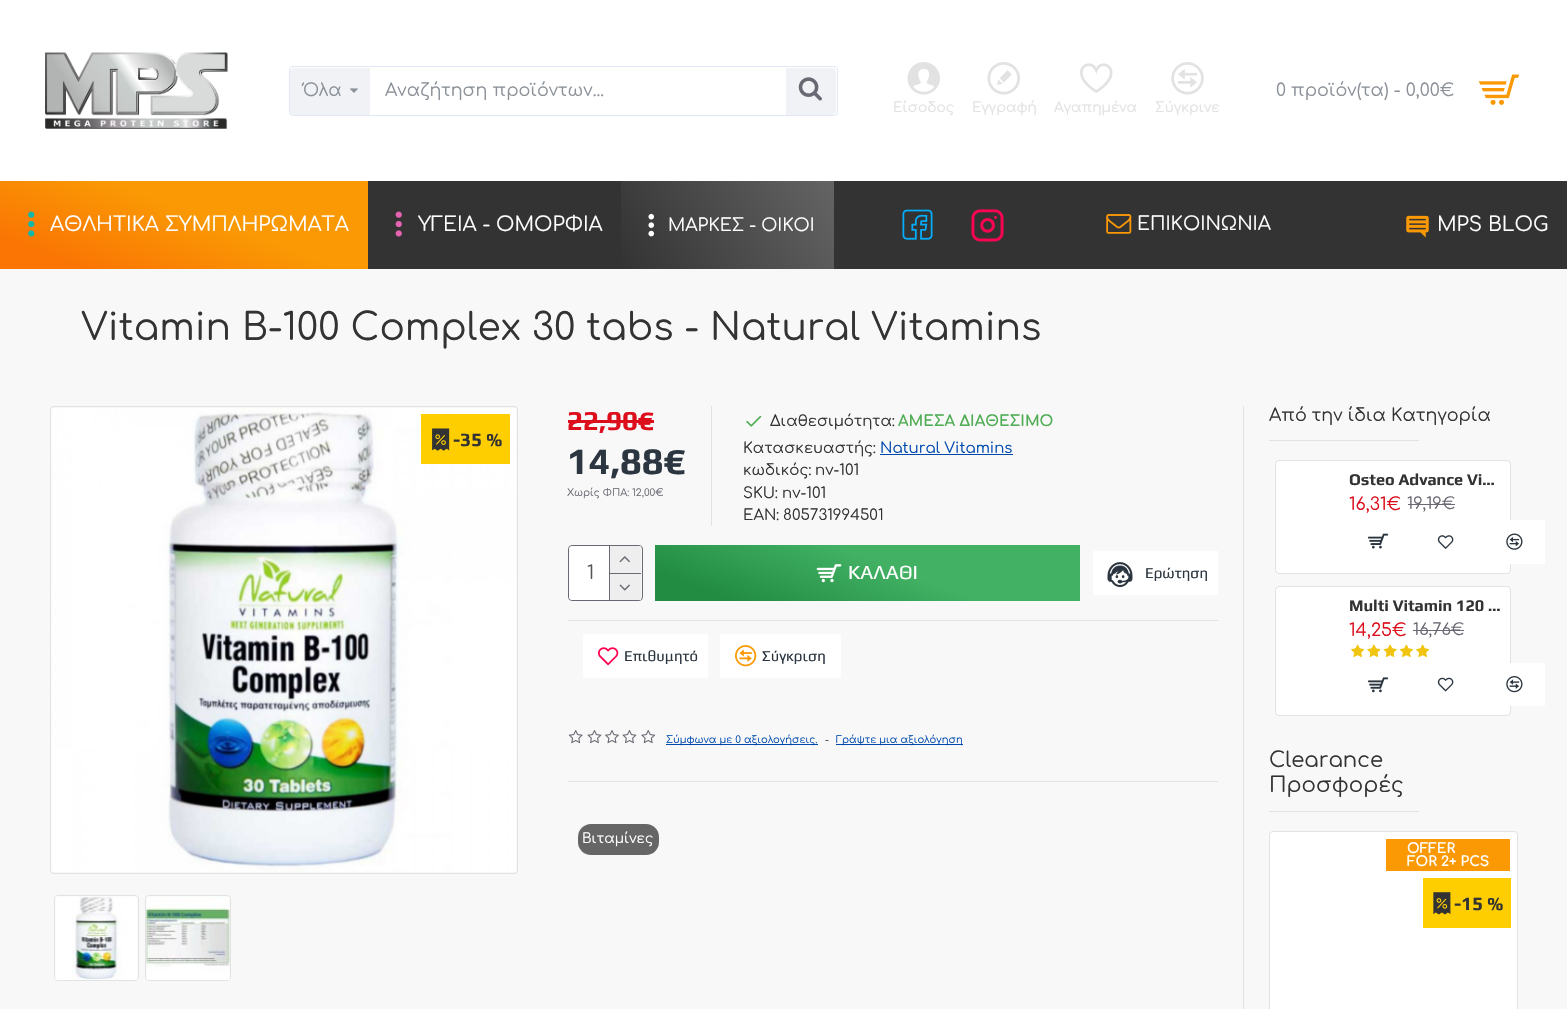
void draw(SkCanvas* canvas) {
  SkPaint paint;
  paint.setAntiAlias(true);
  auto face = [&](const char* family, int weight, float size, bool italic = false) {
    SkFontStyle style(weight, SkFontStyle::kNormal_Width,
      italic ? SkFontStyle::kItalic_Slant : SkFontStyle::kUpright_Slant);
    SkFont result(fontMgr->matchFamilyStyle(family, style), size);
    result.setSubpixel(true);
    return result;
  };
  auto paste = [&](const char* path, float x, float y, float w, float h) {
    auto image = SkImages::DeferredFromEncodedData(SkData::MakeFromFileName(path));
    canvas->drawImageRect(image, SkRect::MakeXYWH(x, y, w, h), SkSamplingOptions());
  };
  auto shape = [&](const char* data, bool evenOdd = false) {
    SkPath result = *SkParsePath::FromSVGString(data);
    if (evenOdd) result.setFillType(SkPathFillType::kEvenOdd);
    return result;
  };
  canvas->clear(0xfff8f8f8);
  paint.setColor(0xffffffff);
  canvas->drawRect(SkRect::MakeXYWH(0, 0, 1567, 181), paint);
  paste("img/1.png", 45, 52, 183, 77);
  paint.setStroke(true);
  paint.setStrokeWidth(1);
  paint.setColor(0xffdfe7f6);
  canvas->drawRoundRect(SkRect::MakeXYWH(289.5f, 66.5f, 548, 49), 3.5f, 3.5f, paint);
  paint.setStroke(false);
  paint.setColor(0xfff0f2f5);
  canvas->drawPath(shape("M294 68H370V115H294C292 115 290 113 290 111V72C290 70 292 68 294 68Z"), paint);
  paste("img/2.png", 350, 88, 8, 5);
  canvas->drawPath(shape("M786 68H832C834 68 836 70 836 72V111C836 113 834 115 832 115H786Z"), paint);
  paste("img/3.png", 798, 77, 24, 24);
  paste("img/4.png", 1478, 74, 42, 31);
  paste("img/5.png", 907, 62, 33, 33);
  paste("img/6.png", 987, 62, 33, 33);
  paste("img/7.png", 1080, 63, 33, 30);
  paste("img/8.png", 1171, 62, 33, 33);
  paint.setColor(0xff333333);
  canvas->drawRect(SkRect::MakeXYWH(368, 181, 1199, 88), paint);
  {
    const SkColor colors[] = {0xfffa9904, 0xfffa7504};
    const float stops[] = {0.43f, 0.86f};
    const SkPoint ends[] = {{222, 125}, {146, 325}};
    paint.setShader(SkGradientShader::MakeLinear(ends, colors, stops, 2, SkTileMode::kClamp));
    paint.setAlpha(255);
  }
  canvas->drawRect(SkRect::MakeXYWH(0, 181, 368, 88), paint);
  paste("img/9.png", 28, 211, 7, 26);
  paste("img/10.png", 395, 211, 7, 26);
  {
    const SkColor colors[] = {0xff333333, 0xff646464};
    const float stops[] = {0, 1};
    const SkPoint ends[] = {{629, 282}, {826, 168}};
    paint.setShader(SkGradientShader::MakeLinear(ends, colors, stops, 2, SkTileMode::kClamp));
    paint.setAlpha(255);
  }
  canvas->drawRect(SkRect::MakeXYWH(621, 181, 213, 88), paint);
  paste("img/11.png", 648, 213, 6, 24);
  paste("img/12.png", 902, 209, 31, 31);
  paste("img/13.png", 971, 209, 33, 33);
  paste("img/14.png", 1106, 214, 26, 20);
  paste("img/15.png", 1406, 215, 23, 23);
  paint.setStroke(true);
  paint.setShader(nullptr);
  paint.setColor(0xffe2e2e2);
  canvas->drawRoundRect(SkRect::MakeXYWH(50.5f, 406.5f, 467, 467), 3.5f, 3.5f, paint);
  paste("img/16.png", 51, 408, 465, 464);
  paint.setStroke(false);
  paint.setColor(0xffffce00);
  canvas->drawRect(SkRect::MakeXYWH(421, 414, 89, 50), paint);
  paste("img/17.png", 432, 428, 18, 23);
  paint.setStroke(true);
  paint.setColor(0xffe2e2e2);
  canvas->drawRoundRect(SkRect::MakeXYWH(54.5f, 895.5f, 84, 85), 3.5f, 3.5f, paint);
  paste("img/18.png", 55, 896, 83, 84);
  canvas->drawRoundRect(SkRect::MakeXYWH(145.5f, 895.5f, 85, 85), 3.5f, 3.5f, paint);
  paste("img/19.png", 146, 896, 84, 84);
  paint.setStroke(false);
  paint.setColor(0xffdd0e1c);
  canvas->drawRect(SkRect::MakeXYWH(568, 420, 86, 3), paint);
  paint.setColor(0xffe2e2e2);
  canvas->drawRect(SkRect::MakeXYWH(711, 406, 1, 120), paint);
  paste("img/20.png", 746, 415, 16, 12);
  paint.setColor(0xff004aad);
  canvas->drawRect(SkRect::MakeXYWH(880, 454, 133, 1), paint);
  paint.setStroke(true);
  paint.setColor(0xff696973);
  canvas->drawRoundRect(SkRect::MakeXYWH(568.5f, 545.5f, 74, 55), 3.5f, 3.5f, paint);
  paint.setStroke(false);
  paint.setColor(0xffffffff);
  canvas->drawRoundRect(SkRect::MakeXYWH(569, 546, 72, 54), 4, 4, paint);
  {
    const struct { float x, y, w, h; SkColor color; } items[] = {
      {609, 546, 1, 54, 0xff696973},
      {610, 546, 31, 27, 0xffeeeeee},
      {610, 573, 31, 1, 0xff696973},
    };
    for (auto [x, y, w, h, color] : items) {
      paint.setColor(color);
      canvas->drawRect(SkRect::MakeXYWH(x, y, w, h), paint);
    }
  }
  paste("img/21.png", 619, 556, 11, 7);
  paint.setColor(0xffeeeeee);
  canvas->drawRect(SkRect::MakeXYWH(610, 574, 31, 26), paint);
  paste("img/22.png", 619, 584, 11, 7);
  {
    const SkColor colors[] = {0xff42b164, 0xff218c42};
    const float stops[] = {0.43f, 0.86f};
    const SkPoint ends[] = {{904, 478}, {831, 669}};
    paint.setShader(SkGradientShader::MakeLinear(ends, colors, stops, 2, SkTileMode::kClamp));
    paint.setAlpha(255);
  }
  canvas->drawRect(SkRect::MakeXYWH(655, 545, 425, 56), paint);
  paste("img/23.png", 816, 564, 26, 19);
  paint.setShader(nullptr);
  paint.setColor(0xffffffff);
  canvas->drawRect(SkRect::MakeXYWH(1093, 551, 125, 44), paint);
  paste("img/24.png", 1107, 562, 26, 26);
  paint.setColor(0xffe2e2e2);
  canvas->drawRect(SkRect::MakeXYWH(568, 620, 650, 1), paint);
  paint.setColor(0xffffffff);
  canvas->drawRect(SkRect::MakeXYWH(583, 634, 125, 44), paint);
  paste("img/25.png", 597, 647, 22, 19);
  canvas->drawRect(SkRect::MakeXYWH(720, 634, 121, 44), paint);
  paste("img/26.png", 735, 645, 22, 22);
  paint.setColor(0xffe2e2e2);
  canvas->drawRect(SkRect::MakeXYWH(568, 781, 650, 1), paint);
  paste("img/27.png", 568, 730, 15, 14);
  paste("img/28.png", 587, 730, 15, 14);
  paste("img/29.png", 605, 730, 14, 14);
  paste("img/28.png", 622, 730, 15, 14);
  paste("img/30.png", 641, 730, 15, 14);
  paint.setColor(0xff004aad);
  canvas->drawRect(SkRect::MakeXYWH(666, 744, 152, 1), paint);
  canvas->drawRect(SkRect::MakeXYWH(836, 744, 127, 1), paint);
  paint.setColor(0xff666666);
  canvas->drawRoundRect(SkRect::MakeXYWH(578, 824, 81, 31), 13, 13, paint);
  paint.setColor(0xffe2e2e2);
  canvas->drawRect(SkRect::MakeXYWH(1243, 406, 1, 603), paint);
  canvas->drawRect(SkRect::MakeXYWH(1269, 440, 150, 1), paint);
  paint.setColor(0xffffffff);
  canvas->drawRoundRect(SkRect::MakeXYWH(1275.5f, 460.5f, 235, 113), 3.5f, 3.5f, paint);
  paint.setStroke(true);
  paint.setColor(0xffe2e2e2);
  canvas->drawRoundRect(SkRect::MakeXYWH(1275.5f, 460.5f, 235, 113), 3.5f, 3.5f, paint);
  paint.setStroke(false);
  paint.setColor(0xff696973);
  canvas->drawRect(SkRect::MakeXYWH(1408, 504, 47, 1), paint);
  paste("img/31.png", 1367, 533, 22, 16);
  paste("img/32.png", 1437, 535, 17, 14);
  paint.setColor(0xffffffff);
  canvas->drawRect(SkRect::MakeXYWH(1510, 520, 35, 44), paint);
  paste("img/33.png", 1506, 533, 17, 17);
  canvas->drawRoundRect(SkRect::MakeXYWH(1275.5f, 586.5f, 235, 129), 3.5f, 3.5f, paint);
  paint.setStroke(true);
  paint.setColor(0xffe2e2e2);
  canvas->drawRoundRect(SkRect::MakeXYWH(1275.5f, 586.5f, 235, 129), 3.5f, 3.5f, paint);
  paint.setStroke(false);
  paint.setColor(0xff696973);
  canvas->drawRect(SkRect::MakeXYWH(1413, 630, 51, 1), paint);
  paste("img/34.png", 1351, 644, 13, 13);
  paste("img/35.png", 1351, 644, 13, 13);
  paste("img/36.png", 1367, 644, 14, 13);
  paste("img/37.png", 1367, 644, 14, 13);
  paste("img/38.png", 1383, 644, 14, 13);
  paste("img/39.png", 1383, 644, 14, 13);
  paste("img/40.png", 1400, 644, 13, 13);
  paste("img/41.png", 1400, 644, 13, 13);
  paste("img/34.png", 1416, 644, 13, 13);
  paste("img/35.png", 1416, 644, 13, 13);
  paste("img/42.png", 1367, 677, 22, 16);
  paste("img/43.png", 1437, 677, 17, 15);
  paint.setColor(0xffffffff);
  canvas->drawRect(SkRect::MakeXYWH(1510, 663, 35, 43), paint);
  paste("img/44.png", 1506, 676, 17, 17);
  paint.setColor(0xffe2e2e2);
  canvas->drawRect(SkRect::MakeXYWH(1269, 811, 150, 1), paint);
  paint.setColor(0xffffffff);
  canvas->drawRoundRect(SkRect::MakeXYWH(1269.5f, 831.5f, 248, 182), 3.5f, 3.5f, paint);
  paint.setStroke(true);
  paint.setColor(0xffe2e2e2);
  canvas->drawRoundRect(SkRect::MakeXYWH(1269.5f, 831.5f, 248, 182), 3.5f, 3.5f, paint);
  paint.setStroke(false);
  paint.setColor(0xfffb9905);
  canvas->drawRect(SkRect::MakeXYWH(1386, 839, 124, 32), paint);
  paint.setColor(0xffffce00);
  canvas->drawRect(SkRect::MakeXYWH(1423, 878, 88, 50), paint);
  paste("img/45.png", 1433, 892, 18, 23);
  auto f0 = face("Comfortaa", 400, 17.5f);
  paint.setColor(0xff8b9198);
  {
    const struct { const char* s; float x, y; } items[] = {
      {"Όλα", 303, 96},
      {"Αναζήτηση προϊόντων...", 385, 96},
      {"0 προϊόν(τα) - 0,00€", 1276, 96},
    };
    for (auto [s, x, y] : items) {
      canvas->drawString(s, x, y, f0, paint);
    }
  }
  auto f1 = face("Comfortaa", 400, 13.75f);
  paint.setColor(0xffe2e2e2);
  {
    const struct { const char* s; float x, y; } items[] = {
      {"Είσοδος", 893, 112},
      {"Εγγραφή", 972, 112},
      {"Αγαπημένα", 1054, 112},
      {"Σύγκρινε", 1155, 112},
    };
    for (auto [s, x, y] : items) {
      canvas->drawString(s, x, y, f1, paint);
    }
  }
  auto f2 = face("Comfortaa", 400, 20);
  paint.setColor(0xffffffff);
  canvas->drawString("ΑΘΛΗΤΙΚΑ ΣΥΜΠΛΗΡΩΜΑΤΑ", 50, 231, f2, paint);
  canvas->drawString("ΥΓΕΙΑ - ΟΜΟΡΦΙΑ", 418, 231, f2, paint);
  canvas->drawString("ΜΑΡΚΕΣ - ΟΙΚΟΙ", 668, 231, f0, paint);
  auto f3 = face("Comfortaa", 400, 18.75f);
  canvas->drawString("ΕΠΙΚΟΙΝΩΝΙΑ", 1137, 230, f3, paint);
  canvas->drawString("MPS BLOG", 1437, 231, f2, paint);
  auto f4 = face("Comfortaa", 400, 37.5f);
  paint.setColor(0xff333333);
  canvas->drawString("Vitamin B-100 Complex 30 tabs - Natural Vitamins", 81, 340, f4, paint);
  auto f5 = face("Play", 700, 18.75f);
  canvas->drawString("-35 %", 453, 446, f5, paint);
  auto f6 = face("Play", 700, 27.5f);
  paint.setColor(0xffdd0e1c);
  canvas->drawString("22,90€", 567, 430, f6, paint);
  auto f7 = face("Play", 700, 37.5f);
  paint.setColor(0xff2c3640);
  canvas->drawString("14,88€", 567, 474, f7, paint);
  auto f8 = face("Comfortaa", 400, 10);
  paint.setColor(0xff696973);
  canvas->drawString("Χωρίς ΦΠΑ: 12,00€", 567, 496, f8, paint);
  auto f9 = face("Comfortaa", 400, 15);
  paint.setColor(0xff333333);
  canvas->drawString("Διαθεσιμότητα:", 770, 426, f9, paint);
  auto f10 = face("Comfortaa", 700, 15);
  paint.setColor(0xff50ad55);
  canvas->drawString("ΑΜΕΣΑ ΔΙΑΘΕΣΙΜΟ", 898, 426, f10, paint);
  paint.setColor(0xff333333);
  canvas->drawString("Κατασκευαστής:", 743, 453, f9, paint);
  paint.setColor(0xff004aad);
  canvas->drawString("Natural Vitamins", 880, 453, f9, paint);
  paint.setColor(0xff333333);
  {
    const struct { const char* s; float x, y; } items[] = {
      {"κωδικός:", 743, 475},
      {"nv-101", 815, 475},
      {"SKU:", 743, 498},
      {"nv-101", 782, 498},
      {"EAN:", 743, 520},
      {"805731994501", 783, 520},
    };
    for (auto [s, x, y] : items) {
      canvas->drawString(s, x, y, f9, paint);
    }
  }
  paint.setColor(0xff555555);
  canvas->drawString("1", 587, 579, f3, paint);
  auto f11 = face("Play", 400, 20);
  paint.setColor(0xffffffff);
  canvas->drawString("ΚΑΛΑΘΙ", 848, 579, f11, paint);
  auto f12 = face("Play", 400, 15);
  paint.setColor(0xff2c3640);
  {
    const struct { const char* s; float x, y; } items[] = {
      {"Ερώτηση", 1145, 578},
      {"Επιθυμητό", 624, 661},
      {"Σύγκριση", 762, 661},
    };
    for (auto [s, x, y] : items) {
      canvas->drawString(s, x, y, f12, paint);
    }
  }
  paint.setColor(0xff004aad);
  canvas->drawString("Σύμφωνα με 0 αξιολογήσεις.", 666, 743, f8, paint);
  paint.setColor(0xff333333);
  canvas->drawString("-", 825, 743, f8, paint);
  paint.setColor(0xff004aad);
  canvas->drawString("Γράψτε μια αξιολόγηση", 836, 743, f8, paint);
  paint.setColor(0xffffffff);
  canvas->drawString("Βιταμίνες", 582, 843, f1, paint);
  paint.setColor(0xff333333);
  canvas->drawString("Από την ίδια Κατηγορία", 1269, 421, f0, paint);
  auto f13 = face("Play", 700, 16.25f);
  canvas->drawString("Osteo Advance Vi…", 1349, 485, f13, paint);
  paint.setColor(0xffdd0e1c);
  canvas->drawString("16,31€", 1349, 510, f0, paint);
  auto f14 = face("Comfortaa", 400, 16.25f);
  paint.setColor(0xff696973);
  canvas->drawString("19,19€", 1407, 509, f14, paint);
  paint.setColor(0xff333333);
  canvas->drawString("Multi Vitamin 120 …", 1349, 611, f13, paint);
  paint.setColor(0xffdd0e1c);
  canvas->drawString("14,25€", 1349, 636, f0, paint);
  paint.setColor(0xff696973);
  canvas->drawString("16,76€", 1413, 635, f14, paint);
  auto f15 = face("Comfortaa", 400, 21.25f);
  paint.setColor(0xff333333);
  canvas->drawString("Clearance", 1269, 767, f15, paint);
  canvas->drawString("Προσφορές", 1269, 792, f15, paint);
  auto f16 = face("Comfortaa", 700, 13.75f);
  paint.setColor(0xffffffff);
  canvas->drawString("OFFER", 1407, 853, f16, paint);
  canvas->drawString("FOR 2+ PCS", 1407, 866, f16, paint);
  paint.setColor(0xff333333);
  canvas->drawString("-15 %", 1454, 910, f5, paint);
}
